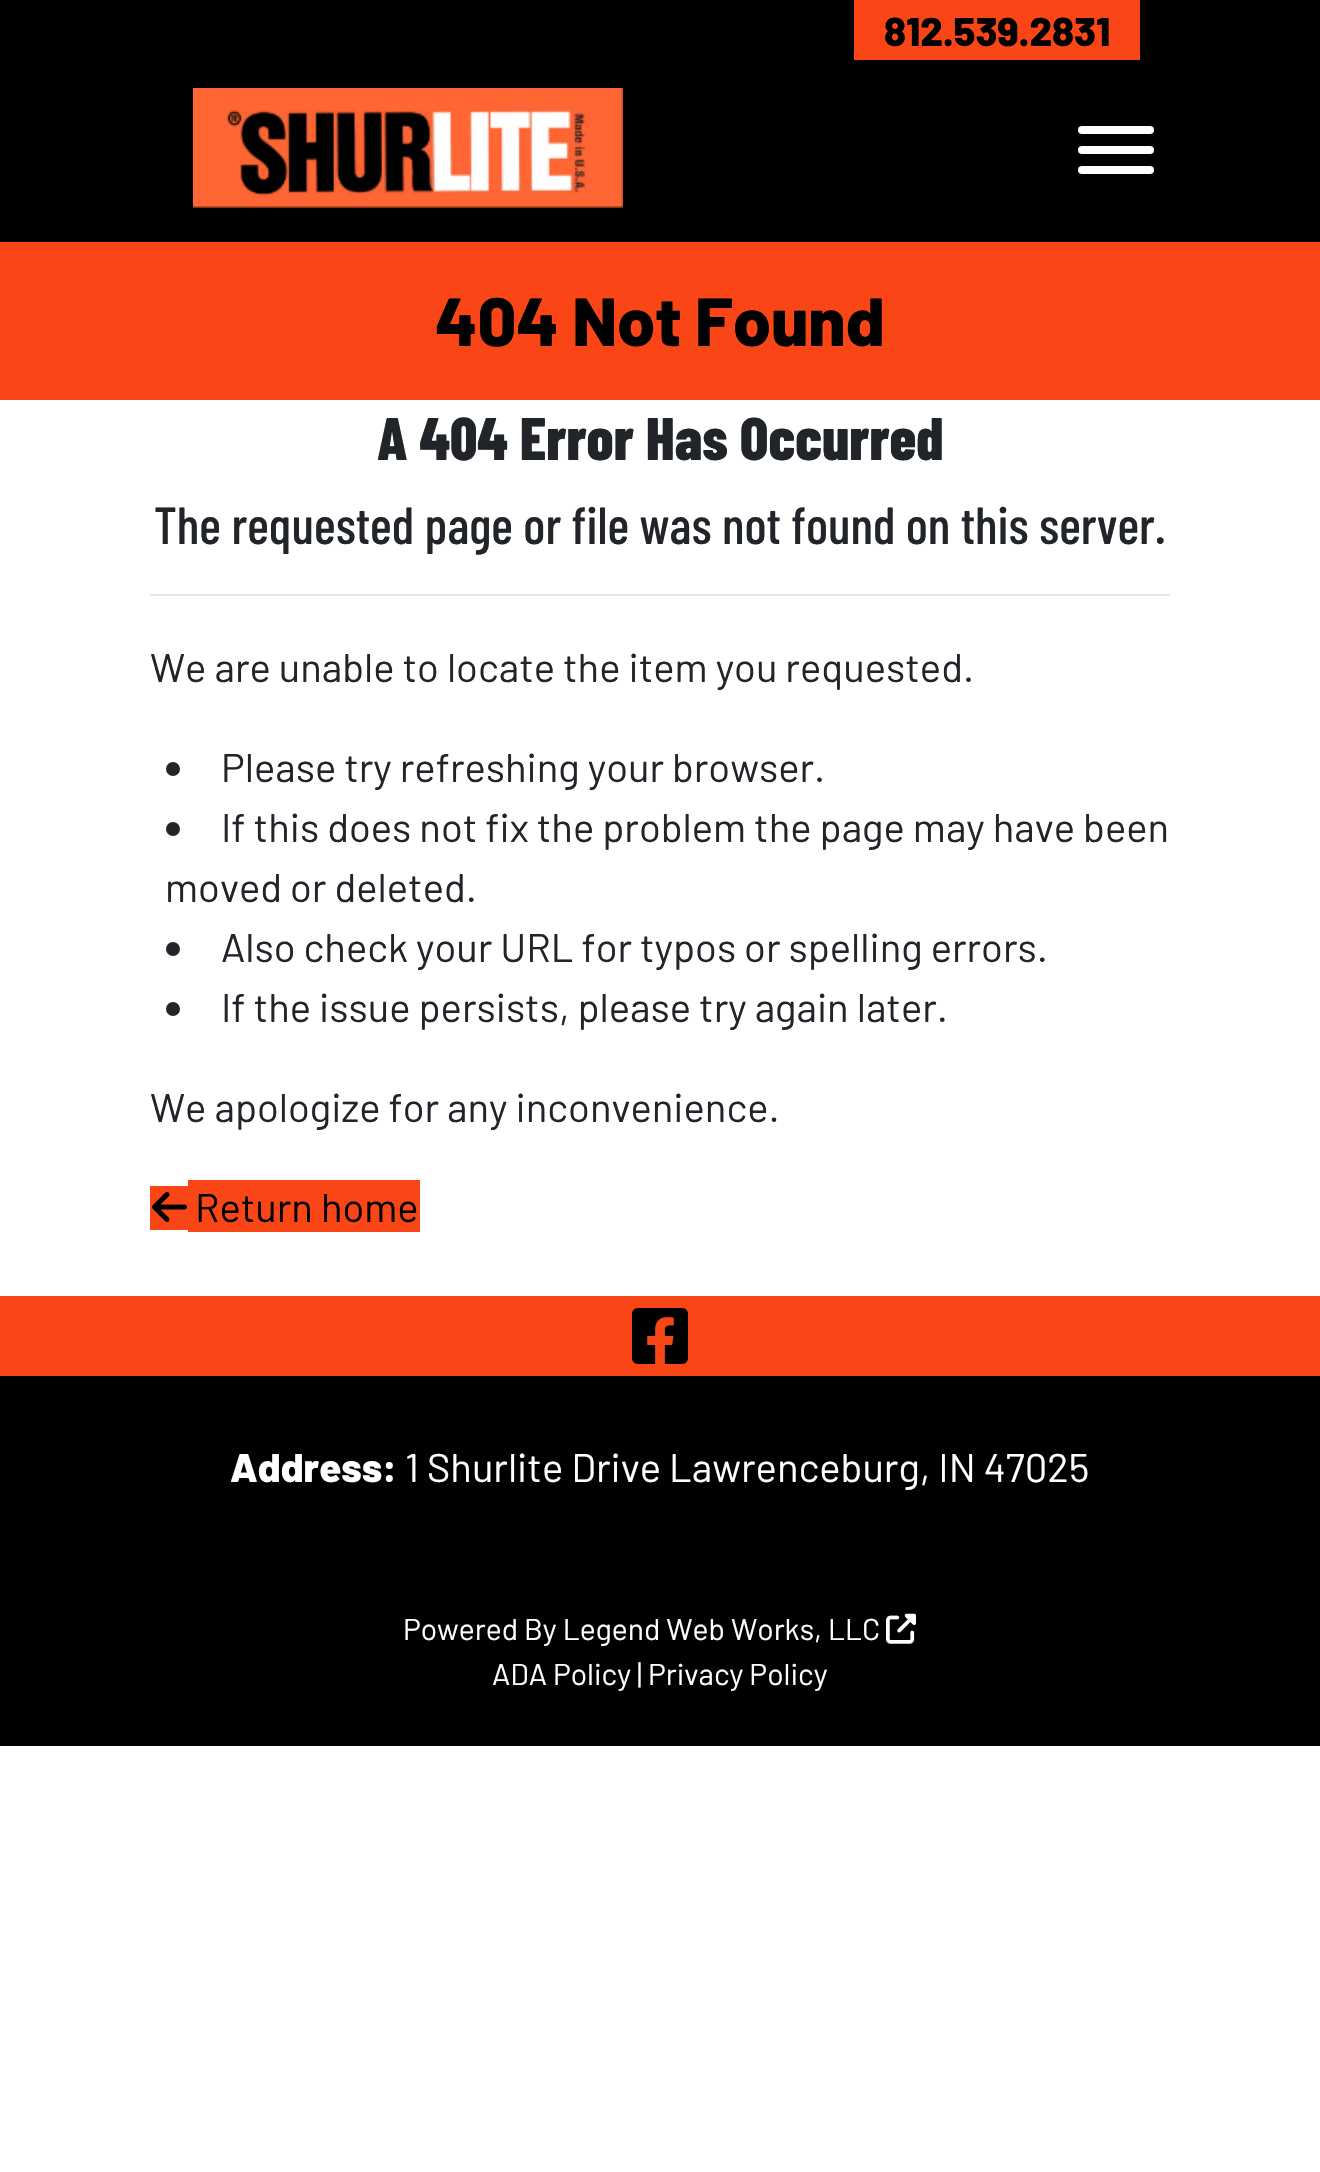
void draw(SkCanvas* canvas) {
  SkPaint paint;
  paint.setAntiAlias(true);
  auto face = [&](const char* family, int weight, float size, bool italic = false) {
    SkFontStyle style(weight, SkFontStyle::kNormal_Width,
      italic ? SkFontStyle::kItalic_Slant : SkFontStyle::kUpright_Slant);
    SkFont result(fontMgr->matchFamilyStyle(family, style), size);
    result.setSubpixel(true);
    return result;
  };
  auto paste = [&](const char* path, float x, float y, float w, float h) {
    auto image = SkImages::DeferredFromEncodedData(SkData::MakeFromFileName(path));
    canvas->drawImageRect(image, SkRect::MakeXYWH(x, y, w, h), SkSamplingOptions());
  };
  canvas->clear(0xffffffff);
  {
    const struct { float x, y, w, h; SkColor color; } items[] = {
      {0, 240, 1320, 2, 0xff000000},
      {0, 0, 1320, 240, 0xff000000},
      {854, 0, 286, 60, 0xfffa4616},
    };
    for (auto [x, y, w, h, color] : items) {
      paint.setColor(color);
      canvas->drawRect(SkRect::MakeXYWH(x, y, w, h), paint);
    }
  }
  paste("img/1.png", 193, 88, 430, 120);
  paint.setColor(0xffffffff);
  canvas->drawRoundRect(SkRect::MakeXYWH(1078, 126, 76, 8), 4, 4, paint);
  canvas->drawRoundRect(SkRect::MakeXYWH(1078, 146, 76, 8), 4, 4, paint);
  canvas->drawRoundRect(SkRect::MakeXYWH(1078, 166, 76, 8), 4, 4, paint);
  paint.setColor(0xfffa4616);
  canvas->drawRect(SkRect::MakeXYWH(0, 242, 1320, 158), paint);
  paint.setColor(0xffe6e6e6);
  canvas->drawRect(SkRect::MakeXYWH(150, 594, 1020, 2), paint);
  paint.setColor(0xff212529);
  canvas->drawCircle(173, 769, 7, paint);
  canvas->drawCircle(173, 829, 7, paint);
  canvas->drawCircle(173, 949, 7, paint);
  canvas->drawCircle(173, 1009, 7, paint);
  paint.setColor(0xfffa4616);
  canvas->drawRect(SkRect::MakeXYWH(150, 1186, 38, 44), paint);
  canvas->drawRect(SkRect::MakeXYWH(188, 1180, 232, 52), paint);
  paste("img/2.png", 152, 1192, 35, 30);
  paint.setColor(0xff000000);
  canvas->drawRect(SkRect::MakeXYWH(0, 1376, 1320, 370), paint);
  paint.setColor(0xfffa4616);
  canvas->drawRect(SkRect::MakeXYWH(0, 1296, 1320, 80), paint);
  paste("img/3.png", 632, 1308, 56, 56);
  paste("img/4.png", 886, 1613, 30, 31);
  auto f0 = face("Barlow", 800, 40);
  paint.setColor(0xff000000);
  canvas->drawString("812.539.2831", 884, 46, f0, paint);
  auto f1 = face("Barlow", 800, 68);
  canvas->drawString("404 Not Found", 435, 346, f1, paint);
  auto f2 = face("Barlow Condensed", 800, 60);
  paint.setColor(0xff212529);
  canvas->drawString("A 404 Error Has Occurred", 377, 460, f2, paint);
  auto f3 = face("Barlow Condensed", 500, 52);
  canvas->drawString("The requested page or file was not found on this server.", 154, 544, f3, paint);
  auto f4 = face("Barlow", 400, 40);
  {
    const struct { const char* s; float x, y; } items[] = {
      {"We are unable to locate the item you requested.", 150, 682},
      {"Please try refreshing your browser.", 221, 782},
      {"If this does not fix the problem the page may have been", 221, 842},
      {"moved or deleted.", 165, 902},
      {"Also check your URL for typos or spelling errors.", 221, 962},
      {"If the issue persists, please try again later.", 221, 1022},
      {"We apologize for any inconvenience.", 150, 1122},
    };
    for (auto [s, x, y] : items) {
      canvas->drawString(s, x, y, f4, paint);
    }
  }
  paint.setColor(0xff000000);
  canvas->drawString("Return home", 195, 1222, f4, paint);
  paint.setColor(0xffffffff);
  canvas->drawString("Address:", 230, 1482, f0, paint);
  canvas->drawString("1 Shurlite Drive Lawrenceburg, IN 47025", 405, 1482, f4, paint);
  auto f5 = face("Barlow", 400, 30);
  canvas->drawString("Powered By Legend Web Works, LLC", 403, 1640, f5, paint);
  canvas->drawString("ADA Policy | Privacy Policy", 492, 1685, f5, paint);
}
